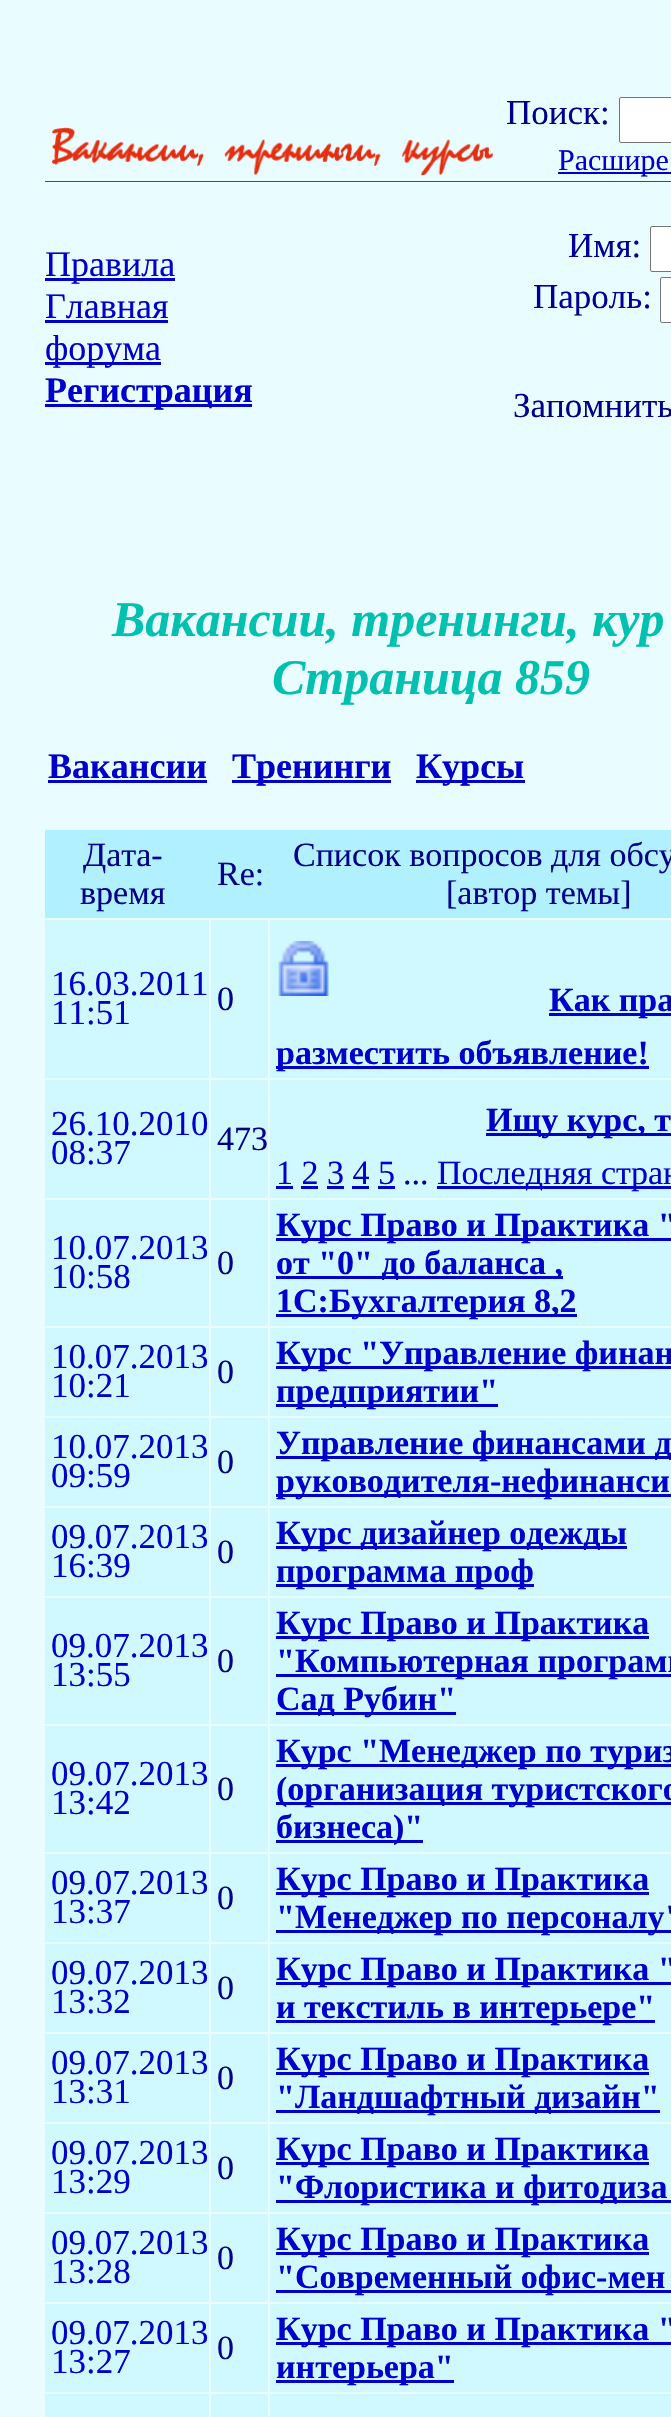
void draw(SkCanvas* canvas) {
  SkPaint paint;
  paint.setAntiAlias(true);
  auto face = [&](const char* family, int weight, float size, bool italic = false) {
    SkFontStyle style(weight, SkFontStyle::kNormal_Width,
      italic ? SkFontStyle::kItalic_Slant : SkFontStyle::kUpright_Slant);
    SkFont result(fontMgr->matchFamilyStyle(family, style), size);
    result.setSubpixel(true);
    return result;
  };
  auto paste = [&](const char* path, float x, float y, float w, float h) {
    auto image = SkImages::DeferredFromEncodedData(SkData::MakeFromFileName(path));
    canvas->drawImageRect(image, SkRect::MakeXYWH(x, y, w, h), SkSamplingOptions());
  };
  canvas->clear(0xffe9fcff);
  paste("img/1.png", 51, 127, 442, 49);
  paint.setColor(0xffffffff);
  canvas->drawRoundRect(SkRect::MakeXYWH(619.5f, 97.5f, 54, 45), 1.5f, 1.5f, paint);
  paint.setStroke(true);
  paint.setStrokeWidth(1);
  paint.setColor(0xff767676);
  canvas->drawRoundRect(SkRect::MakeXYWH(619.5f, 97.5f, 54, 45), 1.5f, 1.5f, paint);
  paint.setStroke(false);
  {
    const struct { float x, y, w, h; SkColor color; } items[] = {
      {558, 172, 113, 2, 0xff0000cc},
      {45, 181, 626, 1, 0xffff0000},
      {45, 278, 130, 3, 0xff0000cc},
      {45, 320, 123, 3, 0xff0000cc},
      {45, 362, 116, 3, 0xff0000cc},
      {45, 404, 207, 3, 0xff0000cc},
    };
    for (auto [x, y, w, h, color] : items) {
      paint.setColor(color);
      canvas->drawRect(SkRect::MakeXYWH(x, y, w, h), paint);
    }
  }
  paint.setColor(0xffffffff);
  canvas->drawRoundRect(SkRect::MakeXYWH(650.5f, 226.5f, 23, 45), 1.5f, 1.5f, paint);
  paint.setStroke(true);
  paint.setColor(0xff767676);
  canvas->drawRoundRect(SkRect::MakeXYWH(650.5f, 226.5f, 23, 45), 1.5f, 1.5f, paint);
  paint.setStroke(false);
  paint.setColor(0xffffffff);
  canvas->drawRoundRect(SkRect::MakeXYWH(660.5f, 277.5f, 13, 45), 1.5f, 1.5f, paint);
  paint.setStroke(true);
  paint.setColor(0xff767676);
  canvas->drawRoundRect(SkRect::MakeXYWH(660.5f, 277.5f, 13, 45), 1.5f, 1.5f, paint);
  paint.setStroke(false);
  {
    const struct { float x, y, w, h; SkColor color; } items[] = {
      {48, 780, 159, 3, 0xff0000cc},
      {232, 780, 159, 3, 0xff0000cc},
      {416, 780, 109, 3, 0xff0000cc},
      {45, 830, 626, 88, 0xffb0f0ff},
      {45, 920, 164, 158, 0xffd0f9ff},
      {211, 920, 57, 158, 0xffd0f9ff},
      {270, 920, 401, 158, 0xffd0f9ff},
    };
    for (auto [x, y, w, h, color] : items) {
      paint.setColor(color);
      canvas->drawRect(SkRect::MakeXYWH(x, y, w, h), paint);
    }
  }
  paste("img/2.png", 278, 941, 51, 55);
  {
    const struct { float x, y, w, h; SkColor color; } items[] = {
      {549, 1013, 122, 3, 0xff0000cc},
      {276, 1066, 373, 3, 0xff0000cc},
      {45, 1080, 164, 118, 0xffd0f9ff},
      {211, 1080, 57, 118, 0xffd0f9ff},
      {270, 1080, 401, 118, 0xffd0f9ff},
      {486, 1133, 185, 3, 0xff0000cc},
      {276, 1186, 17, 3, 0xff0000cc},
      {437, 1186, 234, 3, 0xff0000cc},
      {301, 1186, 17, 3, 0xff0000cc},
      {327, 1186, 17, 3, 0xff0000cc},
      {352, 1186, 17, 3, 0xff0000cc},
      {378, 1186, 17, 3, 0xff0000cc},
      {45, 1200, 164, 126, 0xffd0f9ff},
      {211, 1200, 57, 126, 0xffd0f9ff},
      {270, 1200, 401, 126, 0xffd0f9ff},
      {276, 1238, 395, 3, 0xff0000cc},
      {276, 1276, 287, 3, 0xff0000cc},
      {276, 1314, 301, 3, 0xff0000cc},
      {45, 1328, 164, 88, 0xffd0f9ff},
      {211, 1328, 57, 88, 0xffd0f9ff},
      {270, 1328, 401, 88, 0xffd0f9ff},
      {276, 1366, 395, 3, 0xff0000cc},
      {276, 1404, 222, 3, 0xff0000cc},
      {45, 1418, 164, 88, 0xffd0f9ff},
      {211, 1418, 57, 88, 0xffd0f9ff},
      {270, 1418, 401, 88, 0xffd0f9ff},
      {276, 1456, 395, 3, 0xff0000cc},
      {276, 1494, 395, 3, 0xff0000cc},
      {45, 1508, 164, 88, 0xffd0f9ff},
      {211, 1508, 57, 88, 0xffd0f9ff},
      {270, 1508, 401, 88, 0xffd0f9ff},
      {276, 1546, 351, 3, 0xff0000cc},
      {276, 1584, 258, 3, 0xff0000cc},
      {45, 1598, 164, 126, 0xffd0f9ff},
      {211, 1598, 57, 126, 0xffd0f9ff},
      {270, 1598, 401, 126, 0xffd0f9ff},
      {276, 1636, 373, 3, 0xff0000cc},
      {276, 1674, 395, 3, 0xff0000cc},
      {276, 1712, 180, 3, 0xff0000cc},
      {45, 1726, 164, 126, 0xffd0f9ff},
      {211, 1726, 57, 126, 0xffd0f9ff},
      {270, 1726, 401, 126, 0xffd0f9ff},
      {276, 1764, 395, 3, 0xff0000cc},
      {276, 1802, 395, 3, 0xff0000cc},
      {276, 1840, 147, 3, 0xff0000cc},
      {45, 1854, 164, 88, 0xffd0f9ff},
      {211, 1854, 57, 88, 0xffd0f9ff},
      {270, 1854, 401, 88, 0xffd0f9ff},
      {276, 1892, 373, 3, 0xff0000cc},
      {276, 1930, 395, 3, 0xff0000cc},
      {45, 1944, 164, 88, 0xffd0f9ff},
      {211, 1944, 57, 88, 0xffd0f9ff},
      {270, 1944, 401, 88, 0xffd0f9ff},
      {276, 1982, 395, 3, 0xff0000cc},
      {276, 2020, 379, 3, 0xff0000cc},
      {45, 2034, 164, 88, 0xffd0f9ff},
      {211, 2034, 57, 88, 0xffd0f9ff},
      {270, 2034, 401, 88, 0xffd0f9ff},
      {276, 2072, 373, 3, 0xff0000cc},
      {276, 2110, 384, 3, 0xff0000cc},
      {45, 2124, 164, 88, 0xffd0f9ff},
      {211, 2124, 57, 88, 0xffd0f9ff},
      {270, 2124, 401, 88, 0xffd0f9ff},
      {276, 2162, 373, 3, 0xff0000cc},
      {276, 2200, 395, 3, 0xff0000cc},
      {45, 2214, 164, 88, 0xffd0f9ff},
      {211, 2214, 57, 88, 0xffd0f9ff},
      {270, 2214, 401, 88, 0xffd0f9ff},
      {276, 2252, 373, 3, 0xff0000cc},
      {276, 2290, 395, 3, 0xff0000cc},
      {45, 2304, 164, 88, 0xffd0f9ff},
      {211, 2304, 57, 88, 0xffd0f9ff},
      {270, 2304, 401, 88, 0xffd0f9ff},
      {276, 2342, 395, 3, 0xff0000cc},
      {276, 2380, 178, 3, 0xff0000cc},
      {45, 2394, 164, 23, 0xffd0f9ff},
      {211, 2394, 57, 23, 0xffd0f9ff},
      {270, 2394, 401, 23, 0xffd0f9ff},
    };
    for (auto [x, y, w, h, color] : items) {
      paint.setColor(color);
      canvas->drawRect(SkRect::MakeXYWH(x, y, w, h), paint);
    }
  }
  auto f0 = face("Liberation Serif", 400, 35);
  paint.setColor(0xff000088);
  canvas->drawString("Поиск:", 506, 124, f0, paint);
  auto f1 = face("Liberation Serif", 400, 30);
  paint.setColor(0xff0000cc);
  canvas->drawString("Расшире", 558, 170, f1, paint);
  auto f2 = face("Liberation Serif", 400, 36);
  {
    const struct { const char* s; float x, y; } items[] = {
      {"Правила", 45, 276},
      {"Главная", 45, 318},
      {"форума", 45, 360},
    };
    for (auto [s, x, y] : items) {
      canvas->drawString(s, x, y, f2, paint);
    }
  }
  auto f3 = face("Liberation Serif", 700, 36);
  canvas->drawString("Регистрация", 45, 402, f3, paint);
  paint.setColor(0xff000099);
  canvas->drawString("Имя:", 568, 257, f0, paint);
  canvas->drawString("Пароль:", 533, 308, f0, paint);
  paint.setColor(0xff000088);
  canvas->drawString("Запомнить", 513, 417, f0, paint);
  auto f4 = face("Liberation Serif", 700, 50, true);
  paint.setColor(0xff00c0b0);
  canvas->drawString("Вакансии, тренинги, кур", 112, 636, f4, paint);
  canvas->drawString("Страница 859", 272, 694, f4, paint);
  paint.setColor(0xff0000cc);
  {
    const struct { const char* s; float x, y; } items[] = {
      {"Вакансии", 48, 778},
      {"Тренинги", 232, 778},
      {"Курсы", 416, 778},
    };
    for (auto [s, x, y] : items) {
      canvas->drawString(s, x, y, f3, paint);
    }
  }
  auto f5 = face("Liberation Serif", 400, 34);
  paint.setColor(0xff000088);
  {
    const struct { const char* s; float x, y; } items[] = {
      {"Дата-", 83, 866},
      {"время", 80, 904},
      {"Re:", 217, 885},
      {"Список вопросов для обсу", 293, 866},
      {"[автор темы]", 446, 904},
    };
    for (auto [s, x, y] : items) {
      canvas->drawString(s, x, y, f5, paint);
    }
  }
  paint.setColor(0xff0000cc);
  canvas->drawString("16.03.2011", 51, 995, f0, paint);
  canvas->drawString("11:51", 51, 1024, f0, paint);
  paint.setColor(0xff000088);
  canvas->drawString("0", 217, 1010, f5, paint);
  auto f6 = face("Liberation Serif", 700, 34);
  paint.setColor(0xff0000cc);
  canvas->drawString("Как пра", 549, 1011, f6, paint);
  canvas->drawString("разместить объявление!", 276, 1064, f6, paint);
  canvas->drawString("26.10.2010", 51, 1135, f0, paint);
  canvas->drawString("08:37", 51, 1164, f0, paint);
  paint.setColor(0xff000088);
  canvas->drawString("473", 217, 1150, f5, paint);
  paint.setColor(0xff0000cc);
  canvas->drawString("Ищу курс, т", 486, 1131, f6, paint);
  canvas->drawString("1 2 3 4 5", 276, 1184, f5, paint);
  paint.setColor(0xff000088);
  canvas->drawString("...", 403, 1184, f5, paint);
  paint.setColor(0xff0000cc);
  canvas->drawString("Последняя стран", 437, 1184, f5, paint);
  canvas->drawString("10.07.2013", 51, 1259, f0, paint);
  canvas->drawString("10:58", 51, 1288, f0, paint);
  paint.setColor(0xff000088);
  canvas->drawString("0", 217, 1274, f5, paint);
  paint.setColor(0xff0000cc);
  {
    const struct { const char* s; float x, y; } items[] = {
      {"Курс Право и Практика \"", 276, 1236},
      {"от \"0\" до баланса ,", 276, 1274},
      {"1С:Бухгалтерия 8,2", 276, 1312},
    };
    for (auto [s, x, y] : items) {
      canvas->drawString(s, x, y, f6, paint);
    }
  }
  canvas->drawString("10.07.2013", 51, 1368, f0, paint);
  canvas->drawString("10:21", 51, 1397, f0, paint);
  paint.setColor(0xff000088);
  canvas->drawString("0", 217, 1383, f5, paint);
  paint.setColor(0xff0000cc);
  canvas->drawString("Курс \"Управление финан", 276, 1364, f6, paint);
  canvas->drawString("предприятии\"", 276, 1402, f6, paint);
  canvas->drawString("10.07.2013", 51, 1458, f0, paint);
  canvas->drawString("09:59", 51, 1487, f0, paint);
  paint.setColor(0xff000088);
  canvas->drawString("0", 217, 1473, f5, paint);
  paint.setColor(0xff0000cc);
  canvas->drawString("Управление финансами д", 276, 1454, f6, paint);
  canvas->drawString("руководителя-нефинанси", 276, 1492, f6, paint);
  canvas->drawString("09.07.2013", 51, 1548, f0, paint);
  canvas->drawString("16:39", 51, 1577, f0, paint);
  paint.setColor(0xff000088);
  canvas->drawString("0", 217, 1563, f5, paint);
  paint.setColor(0xff0000cc);
  canvas->drawString("Курс дизайнер одежды", 276, 1544, f6, paint);
  canvas->drawString("программа проф", 276, 1582, f6, paint);
  canvas->drawString("09.07.2013", 51, 1657, f0, paint);
  canvas->drawString("13:55", 51, 1686, f0, paint);
  paint.setColor(0xff000088);
  canvas->drawString("0", 217, 1672, f5, paint);
  paint.setColor(0xff0000cc);
  {
    const struct { const char* s; float x, y; } items[] = {
      {"Курс Право и Практика", 276, 1634},
      {"\"Компьютерная программ", 276, 1672},
      {"Сад Рубин\"", 276, 1710},
    };
    for (auto [s, x, y] : items) {
      canvas->drawString(s, x, y, f6, paint);
    }
  }
  canvas->drawString("09.07.2013", 51, 1785, f0, paint);
  canvas->drawString("13:42", 51, 1814, f0, paint);
  paint.setColor(0xff000088);
  canvas->drawString("0", 217, 1800, f5, paint);
  paint.setColor(0xff0000cc);
  {
    const struct { const char* s; float x, y; } items[] = {
      {"Курс \"Менеджер по туриз", 276, 1762},
      {"(организация туристского", 276, 1800},
      {"бизнеса)\"", 276, 1838},
    };
    for (auto [s, x, y] : items) {
      canvas->drawString(s, x, y, f6, paint);
    }
  }
  canvas->drawString("09.07.2013", 51, 1894, f0, paint);
  canvas->drawString("13:37", 51, 1923, f0, paint);
  paint.setColor(0xff000088);
  canvas->drawString("0", 217, 1909, f5, paint);
  paint.setColor(0xff0000cc);
  canvas->drawString("Курс Право и Практика", 276, 1890, f6, paint);
  canvas->drawString("\"Менеджер по персоналу\"", 276, 1928, f6, paint);
  canvas->drawString("09.07.2013", 51, 1984, f0, paint);
  canvas->drawString("13:32", 51, 2013, f0, paint);
  paint.setColor(0xff000088);
  canvas->drawString("0", 217, 1999, f5, paint);
  paint.setColor(0xff0000cc);
  canvas->drawString("Курс Право и Практика \"", 276, 1980, f6, paint);
  canvas->drawString("и текстиль в интерьере\"", 276, 2018, f6, paint);
  canvas->drawString("09.07.2013", 51, 2074, f0, paint);
  canvas->drawString("13:31", 51, 2103, f0, paint);
  paint.setColor(0xff000088);
  canvas->drawString("0", 217, 2089, f5, paint);
  paint.setColor(0xff0000cc);
  canvas->drawString("Курс Право и Практика", 276, 2070, f6, paint);
  canvas->drawString("\"Ландшафтный дизайн\"", 276, 2108, f6, paint);
  canvas->drawString("09.07.2013", 51, 2164, f0, paint);
  canvas->drawString("13:29", 51, 2193, f0, paint);
  paint.setColor(0xff000088);
  canvas->drawString("0", 217, 2179, f5, paint);
  paint.setColor(0xff0000cc);
  canvas->drawString("Курс Право и Практика", 276, 2160, f6, paint);
  canvas->drawString("\"Флористика и фитодиза", 276, 2198, f6, paint);
  canvas->drawString("09.07.2013", 51, 2254, f0, paint);
  canvas->drawString("13:28", 51, 2283, f0, paint);
  paint.setColor(0xff000088);
  canvas->drawString("0", 217, 2269, f5, paint);
  paint.setColor(0xff0000cc);
  canvas->drawString("Курс Право и Практика", 276, 2250, f6, paint);
  canvas->drawString("\"Современный офис-мен", 276, 2288, f6, paint);
  canvas->drawString("09.07.2013", 51, 2344, f0, paint);
  canvas->drawString("13:27", 51, 2373, f0, paint);
  paint.setColor(0xff000088);
  canvas->drawString("0", 217, 2359, f5, paint);
  paint.setColor(0xff0000cc);
  canvas->drawString("Курс Право и Практика \"", 276, 2340, f6, paint);
  canvas->drawString("интерьера\"", 276, 2378, f6, paint);
}
